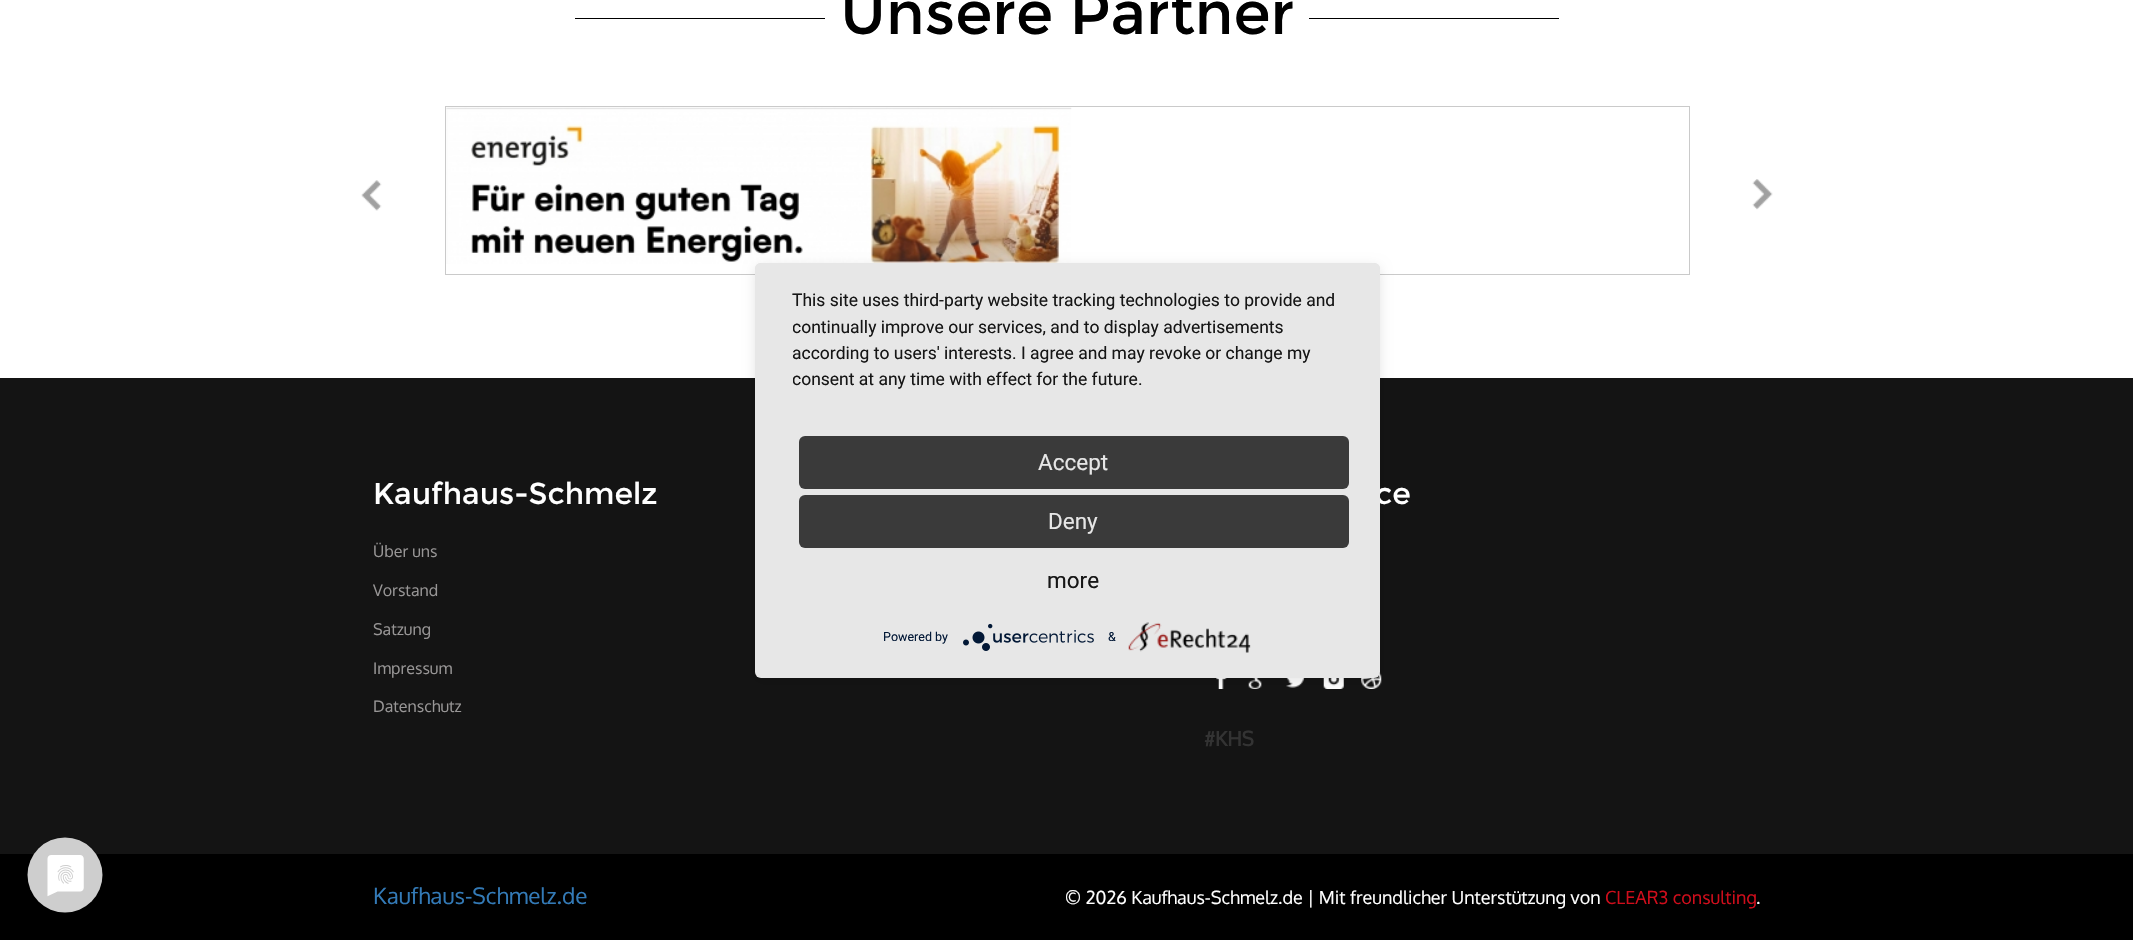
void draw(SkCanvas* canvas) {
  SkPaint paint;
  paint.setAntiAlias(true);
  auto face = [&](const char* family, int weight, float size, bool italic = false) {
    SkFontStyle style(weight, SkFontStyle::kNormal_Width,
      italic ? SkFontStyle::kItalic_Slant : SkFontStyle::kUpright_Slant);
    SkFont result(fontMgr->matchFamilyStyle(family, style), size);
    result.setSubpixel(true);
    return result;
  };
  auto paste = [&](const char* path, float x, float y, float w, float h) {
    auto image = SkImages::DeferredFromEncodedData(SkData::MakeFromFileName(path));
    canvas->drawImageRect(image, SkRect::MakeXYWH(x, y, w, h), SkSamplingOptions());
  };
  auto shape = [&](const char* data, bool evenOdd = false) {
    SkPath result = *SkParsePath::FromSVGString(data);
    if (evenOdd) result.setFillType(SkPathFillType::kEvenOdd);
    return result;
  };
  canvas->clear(0xffffffff);
  paint.setColor(0xff000000);
  canvas->drawRect(SkRect::MakeXYWH(575, 18, 250, 1), paint);
  canvas->drawRect(SkRect::MakeXYWH(1309, 18, 250, 1), paint);
  paste("img/1.png", 361, 180, 21, 31);
  paint.setStroke(true);
  paint.setStrokeWidth(1);
  paint.setColor(0xffcacaca);
  canvas->drawRect(SkRect::MakeXYWH(445.5f, 106.5f, 1244, 168), paint);
  paste("img/2.png", 446, 107, 626, 157);
  paste("img/3.png", 1752, 179, 21, 31);
  paint.setStroke(false);
  paint.setColor(0xff141414);
  canvas->drawRect(SkRect::MakeXYWH(0, 378, 2133, 476), paint);
  paste("img/7.png", 1216, 678, 11, 11);
  paste("img/8.png", 1248, 678, 14, 11);
  paste("img/9.png", 1286, 678, 19, 10);
  paste("img/10.png", 1323, 678, 21, 11);
  paste("img/11.png", 1361, 672, 21, 17);
  paint.setColor(0x1a000000);
  paint.setMaskFilter(SkMaskFilter::MakeBlur(kNormal_SkBlurStyle, 6));
  canvas->drawRoundRect(SkRect::MakeXYWH(755, 266, 625, 415), 6, 6, paint);
  paint.setMaskFilter(nullptr);
  canvas->save();
  canvas->clipPath(shape("M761 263H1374C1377.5 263 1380 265.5 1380 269V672C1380 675.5 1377.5 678 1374 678H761C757.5 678 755 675.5 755 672V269C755 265.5 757.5 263 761 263Z"), true);
  paint.setColor(0x4d000000);
  paint.setMaskFilter(SkMaskFilter::MakeBlur(kNormal_SkBlurStyle, 22.5f));
  canvas->drawRect(SkRect::MakeXYWH(755, 270, 625, 415), paint);
  paint.setMaskFilter(nullptr);
  canvas->restore();
  paint.setColor(0xff000000);
  canvas->drawRect(SkRect::MakeXYWH(0, 854, 2133, 86), paint);
  paste("img/6.png", 27, 837, 76, 76);
  auto f0 = face("Montserrat", 400, 60);
  canvas->drawString("Unsere Partner", 840, 34, f0, paint);
  auto f1 = face("Montserrat", 400, 30);
  paint.setColor(0xffffffff);
  canvas->drawString("Kaufhaus-Schmelz", 373, 504, f1, paint);
  auto f2 = face("Oxygen", 400, 16);
  paint.setColor(0xff989696);
  {
    const struct { const char* s; float x, y; } items[] = {
      {"Über uns", 373, 557},
      {"Vorstand", 373, 596},
      {"Satzung", 373, 635},
      {"Impressum", 373, 674},
      {"Datenschutz", 373, 712},
    };
    for (auto [s, x, y] : items) {
      canvas->drawString(s, x, y, f2, paint);
    }
  }
  paint.setColor(0xffffffff);
  canvas->drawString("ce", 1375, 504, f1, paint);
  paint.setColor(0xffe7e7e7);
  canvas->drawRoundRect(SkRect::MakeXYWH(755, 263, 625, 415), 6, 6, paint);
  paste("img/4.png", 963, 623, 131, 28);
  canvas->save();
  canvas->clipRect(SkRect::MakeXYWH(793, 288, 550, 130));
  auto f3 = face("Roboto", 400, 17.5f);
  paint.setColor(0xff161616);
  canvas->drawString("consent at any time with effect for the future.", 792, 385, f3, paint);
  canvas->restore();
  canvas->drawString("according to users' interests. I agree and may revoke or change my", 792, 359, f3, paint);
  canvas->save();
  canvas->clipRect(SkRect::MakeXYWH(793, 288, 550, 130));
  canvas->drawString("continually improve our services, and to display advertisements", 792, 333, f3, paint);
  canvas->restore();
  canvas->drawString("This site uses third-party website tracking technologies to provide and", 792, 306, f3, paint);
  paste("img/5.png", 1128, 622, 123, 31);
  auto f4 = face("Roboto", 400, 12.5f);
  paint.setColor(0xff021836);
  canvas->drawString("&", 1108, 641, f4, paint);
  canvas->drawString("Powered by", 883, 641, f4, paint);
  auto f5 = face("Roboto", 400, 22.5f);
  paint.setColor(0xff161616);
  canvas->drawString("more", 1047, 588, f5, paint);
  paint.setColor(0xff3a3a3a);
  canvas->drawRoundRect(SkRect::MakeXYWH(799, 495, 550, 53), 6, 6, paint);
  paint.setColor(0xffe6e6e6);
  canvas->drawString("Deny", 1048, 529, f5, paint);
  paint.setColor(0xff3a3a3a);
  canvas->drawRoundRect(SkRect::MakeXYWH(799, 436, 550, 53), 6, 6, paint);
  paint.setColor(0xffe6e6e6);
  canvas->drawString("Accept", 1038, 470, f5, paint);
  auto f6 = face("Oxygen", 700, 20);
  paint.setColor(0xff333333);
  canvas->drawString("#KHS", 1204, 746, f6, paint);
  auto f7 = face("Oxygen", 400, 22.5f);
  paint.setColor(0xff337ab7);
  canvas->drawString("Kaufhaus-Schmelz.de", 373, 904, f7, paint);
  auto f8 = face("Oxygen", 400, 18);
  paint.setColor(0xffffffff);
  canvas->drawString("© 2026 Kaufhaus-Schmelz.de | Mit freundlicher Unterstützung von", 1065, 904, f8, paint);
  paint.setColor(0xffcf0d1b);
  canvas->drawString("CLEAR3 consulting", 1605, 904, f8, paint);
  paint.setColor(0xffffffff);
  canvas->drawString(".", 1756, 904, f8, paint);
}
